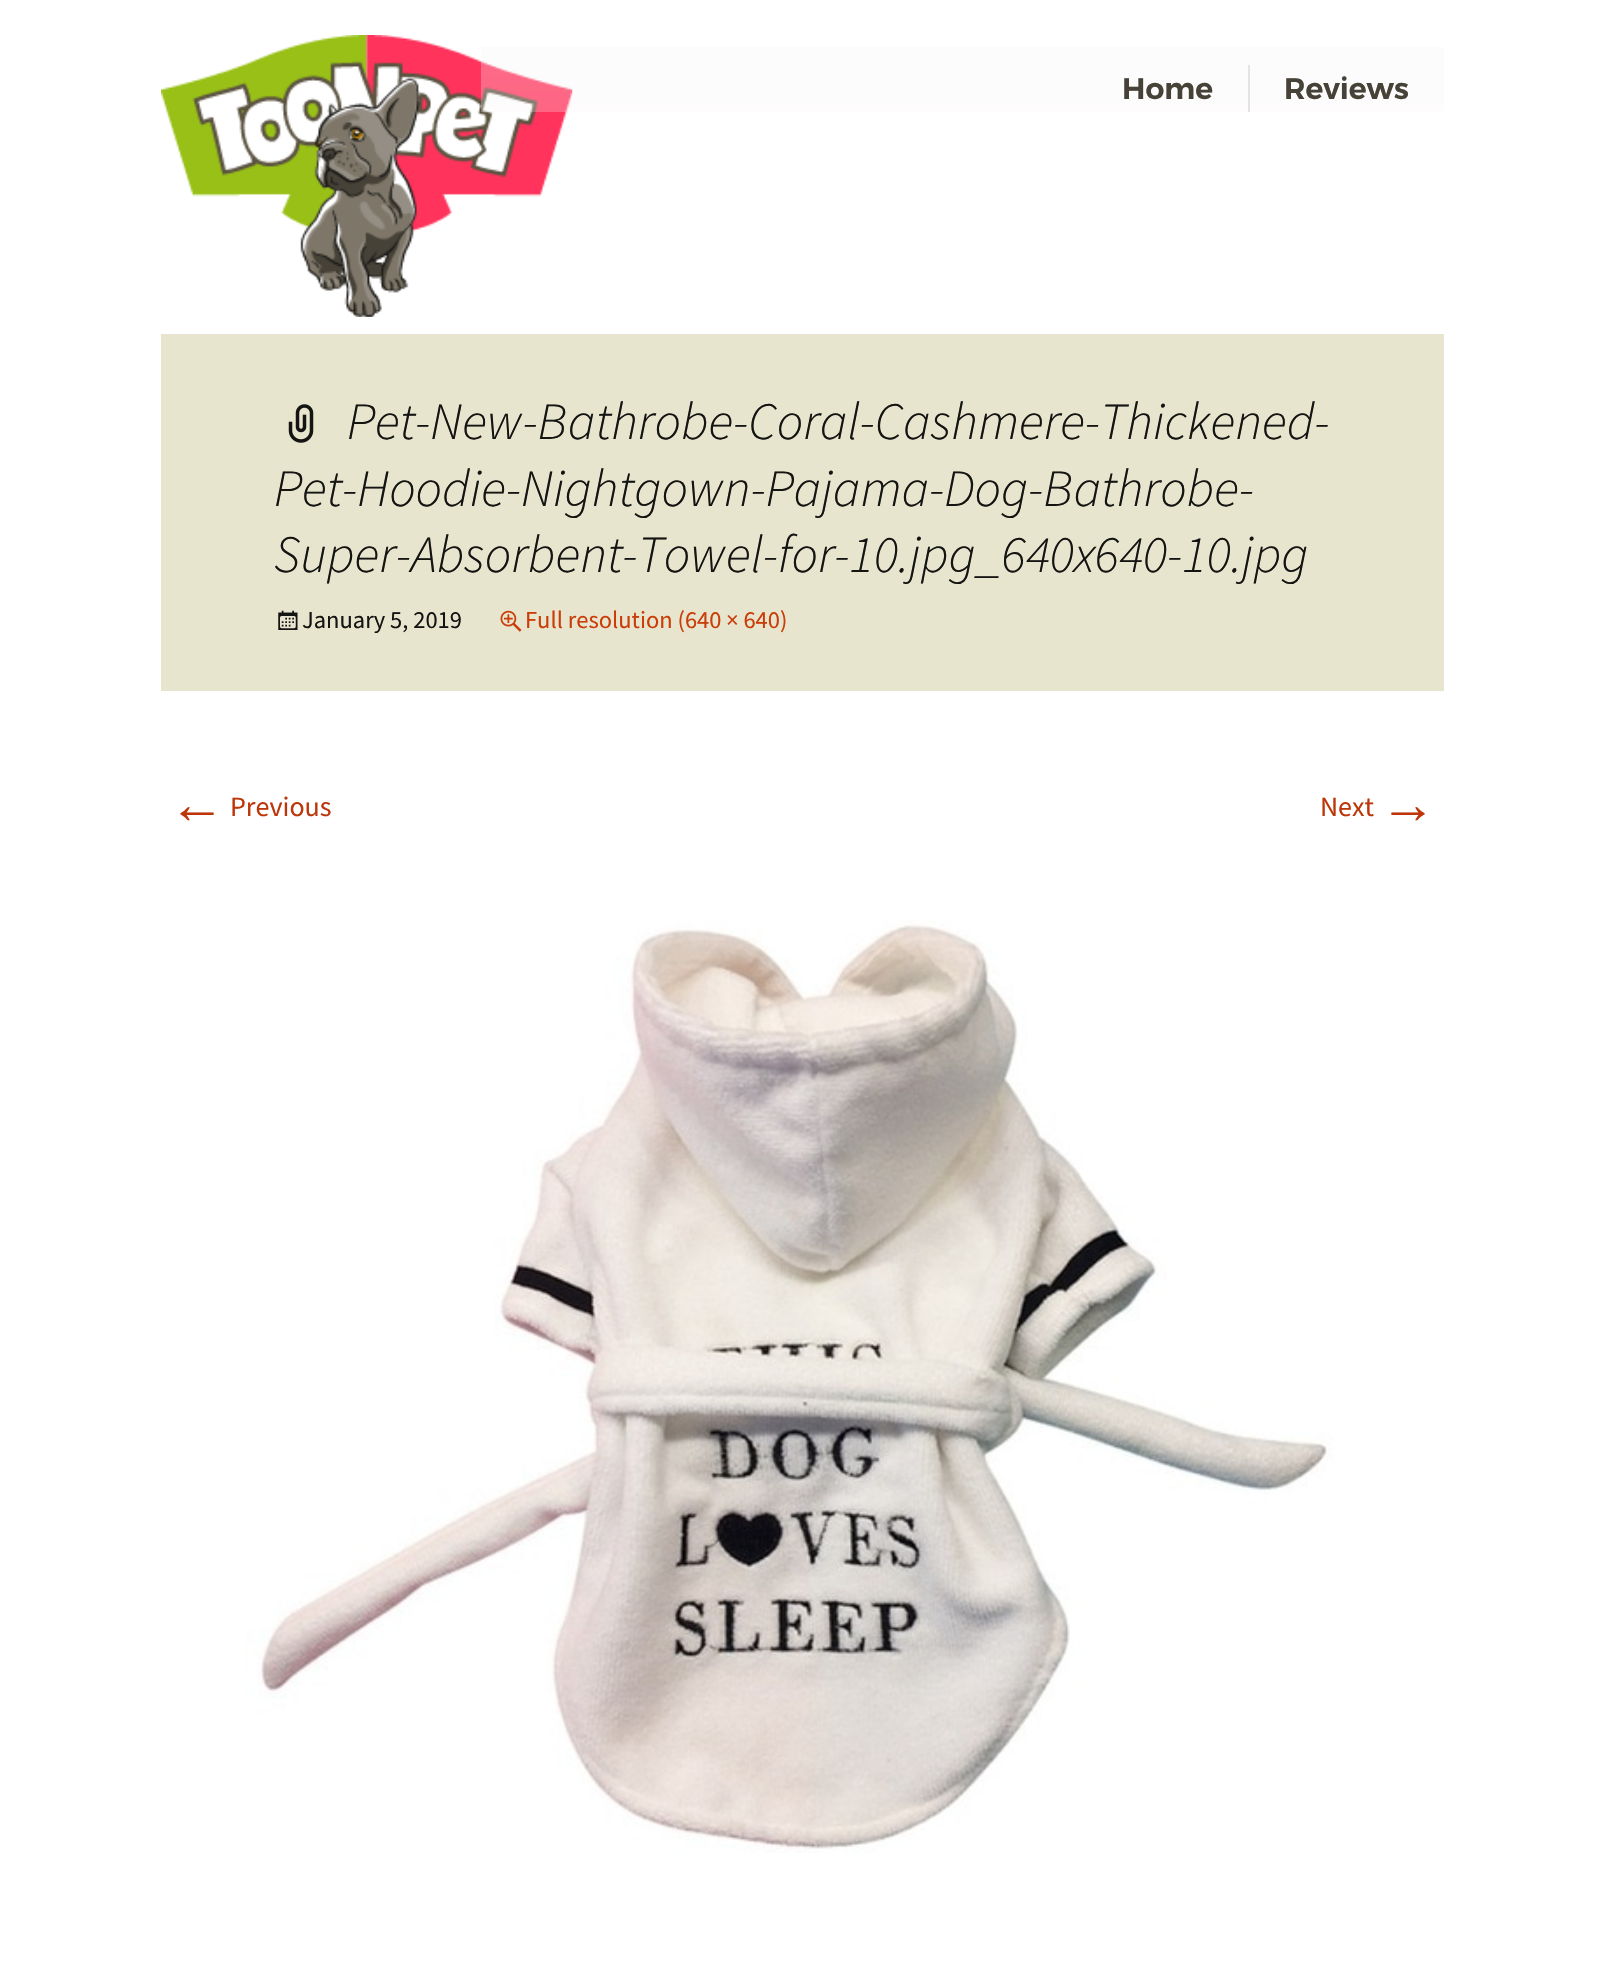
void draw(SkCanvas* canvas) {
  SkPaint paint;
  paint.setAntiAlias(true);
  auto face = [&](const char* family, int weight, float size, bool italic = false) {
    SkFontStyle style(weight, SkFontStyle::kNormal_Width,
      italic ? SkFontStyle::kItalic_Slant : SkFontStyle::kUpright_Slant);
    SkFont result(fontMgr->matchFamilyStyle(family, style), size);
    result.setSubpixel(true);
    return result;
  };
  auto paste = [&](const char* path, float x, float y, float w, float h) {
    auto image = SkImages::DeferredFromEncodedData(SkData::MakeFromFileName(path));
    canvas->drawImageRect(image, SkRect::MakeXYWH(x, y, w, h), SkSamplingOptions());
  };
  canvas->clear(0xffffffff);
  paste("img/1.png", 161, 35, 412, 282);
  {
    const SkColor colors[] = {0x4af6f5f5, 0x42faf4f4};
    const float stops[] = {0, 1};
    const SkPoint ends[] = {{963, 47}, {963, 112}};
    paint.setShader(SkGradientShader::MakeLinear(ends, colors, stops, 2, SkTileMode::kClamp));
    paint.setAlpha(255);
  }
  canvas->drawRect(SkRect::MakeXYWH(481, 47, 963, 65), paint);
  paint.setShader(nullptr);
  paint.setColor(0xffe5e4e4);
  canvas->drawRect(SkRect::MakeXYWH(1248, 65, 2, 47), paint);
  paint.setColor(0xffe8e5ce);
  canvas->drawRect(SkRect::MakeXYWH(161, 334, 1283, 357), paint);
  paste("img/2.png", 288, 404, 26, 39);
  paste("img/3.png", 278, 610, 20, 20);
  paste("img/4.png", 500, 610, 22, 22);
  paste("img/5.png", 244, 919, 1091, 934);
  auto f0 = face("Montserrat", 600, 29.75f);
  paint.setColor(0xff474238);
  canvas->drawString("Home", 1122, 99, f0, paint);
  canvas->drawString("Reviews", 1284, 99, f0, paint);
  auto f1 = face("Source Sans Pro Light", 300, 52.5f, true);
  paint.setColor(0xff141412);
  {
    const struct { const char* s; float x, y; } items[] = {
      {"Pet-New-Bathrobe-Coral-Cashmere-Thickened-", 347, 439},
      {"Pet-Hoodie-Nightgown-Pajama-Dog-Bathrobe-", 274, 506},
      {"Super-Absorbent-Towel-for-10.jpg_640x640-10.jpg", 274, 572},
    };
    for (auto [s, x, y] : items) {
      canvas->drawString(s, x, y, f1, paint);
    }
  }
  auto f2 = face("Source Sans Pro", 400, 24.5f);
  canvas->drawString("January 5, 2019", 302, 628, f2, paint);
  paint.setColor(0xffca3c08);
  canvas->drawString("Full resolution (640 × 640)", 525, 628, f2, paint);
  auto f3 = face("Liberation Sans", 400, 56);
  paint.setColor(0xffbc360a);
  canvas->drawString("←", 169, 823, f3, paint);
  auto f4 = face("Source Sans Pro", 400, 28);
  canvas->drawString("Previous", 230, 816, f4, paint);
  canvas->drawString("Next", 1320, 816, f4, paint);
  canvas->drawString("→", 1380, 823, f3, paint);
}
